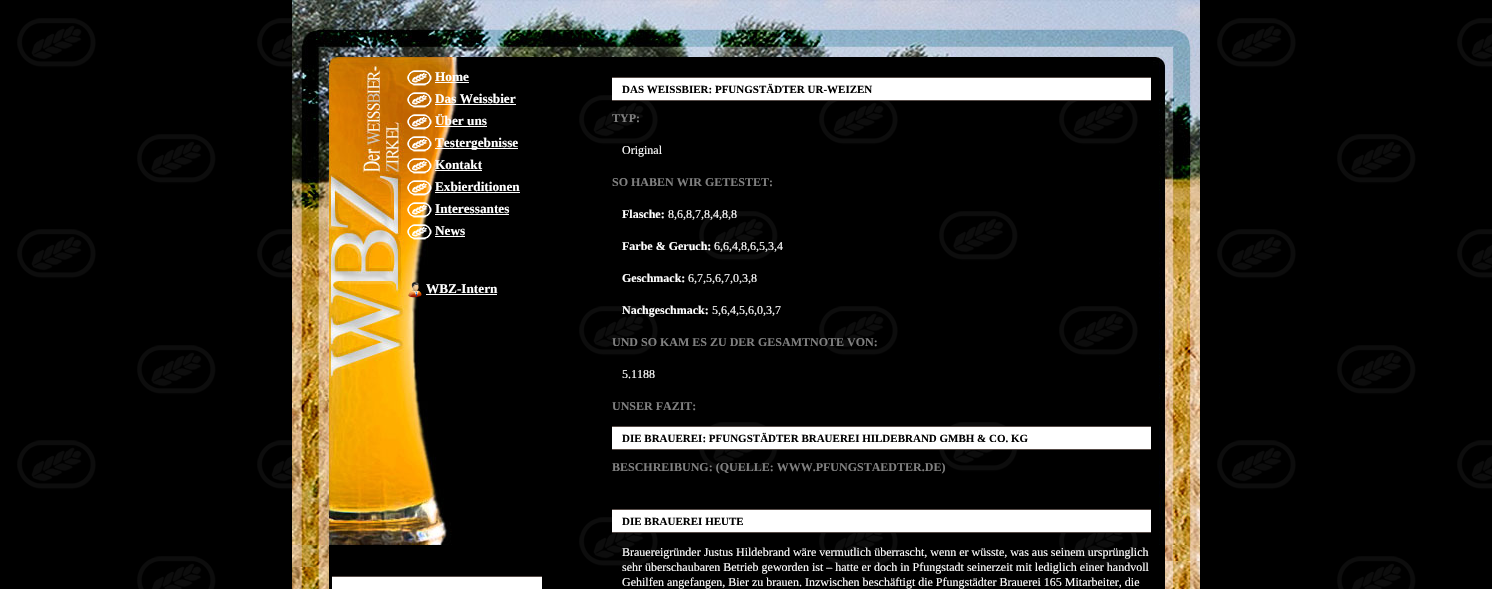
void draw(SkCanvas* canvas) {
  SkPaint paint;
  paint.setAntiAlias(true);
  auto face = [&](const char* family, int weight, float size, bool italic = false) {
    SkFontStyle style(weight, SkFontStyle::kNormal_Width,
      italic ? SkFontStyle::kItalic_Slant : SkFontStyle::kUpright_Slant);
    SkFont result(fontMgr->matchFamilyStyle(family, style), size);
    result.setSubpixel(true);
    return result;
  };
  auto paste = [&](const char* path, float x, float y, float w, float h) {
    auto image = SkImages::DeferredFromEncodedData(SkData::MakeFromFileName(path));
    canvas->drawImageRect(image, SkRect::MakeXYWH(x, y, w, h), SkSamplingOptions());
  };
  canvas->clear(0xff000000);
  paste("img/1.png", 17, 18, 1475, 571);
  paste("img/2.png", 329, 57, 871, 532);
  paste("img/3.png", 292, 0, 908, 57);
  paste("img/4.png", 292, 545, 37, 44);
  paste("img/5.png", 292, 57, 168, 488);
  paste("img/6.png", 407, 70, 25, 16);
  paint.setColor(0xffffffff);
  canvas->drawRect(SkRect::MakeXYWH(435, 82, 34, 1), paint);
  paste("img/7.png", 407, 92, 25, 16);
  canvas->drawRect(SkRect::MakeXYWH(435, 104, 81, 1), paint);
  paste("img/8.png", 407, 114, 25, 16);
  canvas->drawRect(SkRect::MakeXYWH(435, 126, 52, 1), paint);
  paste("img/9.png", 407, 136, 25, 16);
  canvas->drawRect(SkRect::MakeXYWH(435, 148, 83, 1), paint);
  paste("img/10.png", 407, 158, 25, 16);
  canvas->drawRect(SkRect::MakeXYWH(435, 170, 47, 1), paint);
  paste("img/11.png", 407, 180, 25, 16);
  canvas->drawRect(SkRect::MakeXYWH(435, 192, 85, 1), paint);
  paste("img/12.png", 407, 202, 25, 16);
  canvas->drawRect(SkRect::MakeXYWH(435, 214, 74, 1), paint);
  paste("img/13.png", 407, 224, 25, 16);
  canvas->drawRect(SkRect::MakeXYWH(435, 236, 30, 1), paint);
  paste("img/14.png", 408, 282, 14, 16);
  {
    const struct { float x, y, w, h; SkColor color; } items[] = {
      {426, 294, 71, 1, 0xffffffff},
      {332, 577, 210, 12, 0xffffffff},
      {332, 576, 210, 1, 0xff564b47},
    };
    for (auto [x, y, w, h, color] : items) {
      paint.setColor(color);
      canvas->drawRect(SkRect::MakeXYWH(x, y, w, h), paint);
    }
  }
  paste("img/15.png", 579, 95, 559, 471);
  {
    const struct { float x, y, w, h; SkColor color; } items[] = {
      {612, 78, 539, 22, 0xffffffff},
      {612, 77, 539, 1, 0xff564b47},
      {612, 100, 539, 1, 0xff564b47},
      {612, 427, 539, 22, 0xffffffff},
      {612, 426, 539, 1, 0xff564b47},
      {612, 449, 539, 1, 0xff564b47},
      {612, 510, 539, 22, 0xffffffff},
      {612, 509, 539, 1, 0xff564b47},
      {612, 532, 539, 1, 0xff564b47},
    };
    for (auto [x, y, w, h, color] : items) {
      paint.setColor(color);
      canvas->drawRect(SkRect::MakeXYWH(x, y, w, h), paint);
    }
  }
  paste("img/16.png", 1153, 57, 47, 488);
  auto f0 = face("Liberation Serif", 700, 13.25f);
  paint.setColor(0xffffffff);
  {
    const struct { const char* s; float x, y; } items[] = {
      {"Home", 435, 81},
      {"Das Weissbier", 435, 103},
      {"Über uns", 435, 125},
      {"Testergebnisse", 435, 147},
      {"Kontakt", 435, 169},
      {"Exbierditionen", 435, 191},
      {"Interessantes", 435, 213},
      {"News", 435, 235},
      {"WBZ-Intern", 426, 293},
    };
    for (auto [s, x, y] : items) {
      canvas->drawString(s, x, y, f0, paint);
    }
  }
  auto f1 = face("Liberation Serif", 700, 11);
  paint.setColor(0xff000000);
  canvas->drawString("DAS WEISSBIER: PFUNGSTÄDTER UR-WEIZEN", 622, 93, f1, paint);
  auto f2 = face("Liberation Serif", 700, 12);
  paint.setColor(0xff808080);
  canvas->drawString("TYP:", 612, 122, f2, paint);
  auto f3 = face("Liberation Serif", 400, 12);
  paint.setColor(0xffffffff);
  canvas->drawString("Original", 622, 154, f3, paint);
  paint.setColor(0xff808080);
  canvas->drawString("SO HABEN WIR GETESTET:", 612, 186, f2, paint);
  paint.setColor(0xffffffff);
  canvas->drawString("Flasche:", 622, 218, f2, paint);
  canvas->drawString("8,6,8,7,8,4,8,8", 668, 218, f3, paint);
  canvas->drawString("Farbe & Geruch:", 622, 250, f2, paint);
  canvas->drawString("6,6,4,8,6,5,3,4", 714, 250, f3, paint);
  canvas->drawString("Geschmack:", 622, 282, f2, paint);
  canvas->drawString("6,7,5,6,7,0,3,8", 688, 282, f3, paint);
  canvas->drawString("Nachgeschmack:", 622, 314, f2, paint);
  canvas->drawString("5,6,4,5,6,0,3,7", 712, 314, f3, paint);
  paint.setColor(0xff808080);
  canvas->drawString("UND SO KAM ES ZU DER GESAMTNOTE VON:", 612, 346, f2, paint);
  paint.setColor(0xffffffff);
  canvas->drawString("5.1188", 622, 378, f3, paint);
  paint.setColor(0xff808080);
  canvas->drawString("UNSER FAZIT:", 612, 410, f2, paint);
  paint.setColor(0xff000000);
  canvas->drawString("DIE BRAUEREI: PFUNGSTÄDTER BRAUEREI HILDEBRAND GMBH & CO. KG", 622, 442, f1, paint);
  paint.setColor(0xff808080);
  canvas->drawString("BESCHREIBUNG: (QUELLE: WWW.PFUNGSTAEDTER.DE)", 612, 471, f2, paint);
  paint.setColor(0xff000000);
  canvas->drawString("DIE BRAUEREI HEUTE", 622, 525, f1, paint);
  paint.setColor(0xffffffff);
  {
    const struct { const char* s; float x, y; } items[] = {
      {"Brauereigründer Justus Hildebrand wäre vermutlich überrascht, wenn er wüsste, was aus seinem ursprünglich", 622, 556},
      {"sehr überschaubaren Betrieb geworden ist – hatte er doch in Pfungstadt seinerzeit mit lediglich einer handvoll", 622, 571},
      {"Gehilfen angefangen, Bier zu brauen. Inzwischen beschäftigt die Pfungstädter Brauerei 165 Mitarbeiter, die", 622, 586},
    };
    for (auto [s, x, y] : items) {
      canvas->drawString(s, x, y, f3, paint);
    }
  }
}
